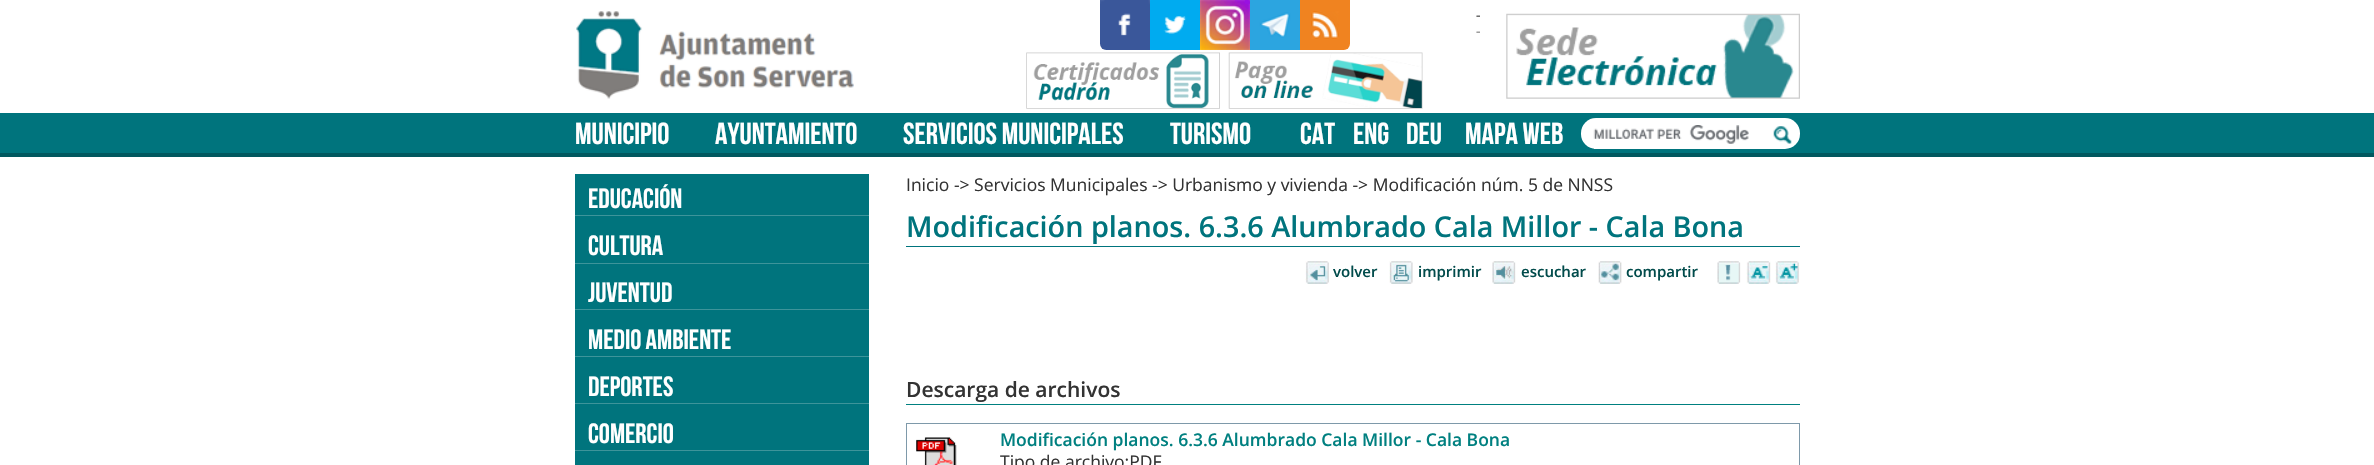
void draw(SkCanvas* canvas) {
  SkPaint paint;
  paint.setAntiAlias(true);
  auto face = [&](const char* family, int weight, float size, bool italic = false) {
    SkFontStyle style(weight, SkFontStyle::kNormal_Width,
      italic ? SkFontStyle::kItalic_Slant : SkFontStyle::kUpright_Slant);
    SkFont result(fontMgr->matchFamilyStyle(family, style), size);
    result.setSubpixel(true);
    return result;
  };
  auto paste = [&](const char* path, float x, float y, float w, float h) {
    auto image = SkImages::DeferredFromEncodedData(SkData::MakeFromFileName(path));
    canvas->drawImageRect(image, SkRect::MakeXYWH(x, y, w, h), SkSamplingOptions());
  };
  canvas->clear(0xffffffff);
  paste("img/1.png", 576, 11, 278, 88);
  paste("img/2.png", 1100, 0, 50, 50);
  paste("img/3.png", 1150, 0, 50, 50);
  paste("img/4.png", 1200, 0, 50, 50);
  paste("img/5.png", 1250, 0, 50, 50);
  paste("img/6.png", 1300, 0, 50, 50);
  paste("img/7.png", 1026, 52, 194, 57);
  paste("img/8.png", 1228, 52, 195, 57);
  paste("img/9.png", 1506, 13, 294, 86);
  paint.setColor(0xff00747d);
  canvas->drawRect(SkRect::MakeXYWH(0, 113, 2374, 40), paint);
  paint.setColor(0xff01585f);
  canvas->drawRect(SkRect::MakeXYWH(0, 153, 2374, 4), paint);
  paint.setColor(0xffffffff);
  canvas->drawRoundRect(SkRect::MakeXYWH(1581, 118, 219, 31), 15, 15, paint);
  canvas->drawRect(SkRect::MakeXYWH(1594, 148, 2, 1), paint);
  paste("img/10.png", 1593, 125, 156, 19);
  paste("img/11.png", 1773, 126, 19, 18);
  {
    const struct { float x, y, w, h; SkColor color; } items[] = {
      {575, 174, 294, 291, 0xff00747d},
      {575, 215, 294, 1, 0xff3d949a},
      {575, 263, 294, 1, 0xff3d949a},
      {575, 309, 294, 1, 0xff3d949a},
      {575, 356, 294, 1, 0xff3d949a},
      {575, 403, 294, 1, 0xff3d949a},
      {575, 450, 294, 1, 0xff3d949a},
      {906, 246, 894, 1, 0xff00747d},
    };
    for (auto [x, y, w, h, color] : items) {
      paint.setColor(color);
      canvas->drawRect(SkRect::MakeXYWH(x, y, w, h), paint);
    }
  }
  paste("img/12.png", 1305, 261, 25, 23);
  paste("img/13.png", 1389, 261, 24, 23);
  paste("img/14.png", 1492, 261, 24, 23);
  paste("img/15.png", 1598, 261, 24, 23);
  paste("img/16.png", 1717, 261, 24, 23);
  paste("img/17.png", 1746, 261, 25, 23);
  paste("img/18.png", 1775, 261, 25, 23);
  paint.setColor(0xff008080);
  canvas->drawRect(SkRect::MakeXYWH(906, 404, 894, 1), paint);
  paint.setStroke(true);
  paint.setStrokeWidth(1);
  paint.setColor(0xff7e99aa);
  canvas->drawRect(SkRect::MakeXYWH(906.5f, 423.5f, 893, 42), paint);
  paste("img/19.png", 916, 437, 41, 28);
  auto f0 = face("Open Sans", 600, 14);
  paint.setStroke(false);
  paint.setColor(0xff666666);
  canvas->drawString("-", 1476, 20, f0, paint);
  paint.setColor(0xff999999);
  canvas->drawString("-", 1476, 36, f0, paint);
  auto f1 = face("Bebas Neue", 400, 30.5f);
  paint.setColor(0xffffffff);
  {
    const struct { const char* s; float x, y; } items[] = {
      {"MUNICIPIO", 575, 144},
      {"AYUNTAMIENTO", 715, 144},
      {"SERVICIOS MUNICIPALES", 903, 144},
      {"TURISMO", 1170, 144},
      {"CAT", 1300, 144},
      {"ENG", 1353, 144},
      {"DEU", 1406, 144},
      {"MAPA WEB", 1465, 144},
    };
    for (auto [s, x, y] : items) {
      canvas->drawString(s, x, y, f1, paint);
    }
  }
  auto f2 = face("Bebas Neue", 400, 28);
  {
    const struct { const char* s; float x, y; } items[] = {
      {"EDUCACIÓN", 588, 208},
      {"CULTURA", 588, 255},
      {"JUVENTUD", 588, 302},
      {"MEDIO AMBIENTE", 588, 349},
      {"DEPORTES", 588, 396},
      {"COMERCIO", 588, 443},
    };
    for (auto [s, x, y] : items) {
      canvas->drawString(s, x, y, f2, paint);
    }
  }
  auto f3 = face("Open Sans", 400, 17.5f);
  paint.setColor(0xff333333);
  canvas->drawString("Inicio -> Servicios Municipales -> Urbanismo y vivienda -> Modificación núm. 5 de NNSS", 906, 191, f3, paint);
  auto f4 = face("Open Sans", 600, 28.75f);
  paint.setColor(0xff00747d);
  canvas->drawString("Modificación planos. 6.3.6 Alumbrado Cala Millor - Cala Bona", 906, 237, f4, paint);
  auto f5 = face("Open Sans", 600, 15);
  paint.setColor(0xff014b4b);
  {
    const struct { const char* s; float x, y; } items[] = {
      {"volver", 1333, 277},
      {"imprimir", 1418, 277},
      {"escuchar", 1521, 277},
      {"compartir", 1626, 277},
    };
    for (auto [s, x, y] : items) {
      canvas->drawString(s, x, y, f5, paint);
    }
  }
  auto f6 = face("Open Sans", 600, 21);
  paint.setColor(0xff333333);
  canvas->drawString("Descarga de archivos", 906, 397, f6, paint);
  auto f7 = face("Open Sans", 600, 17.5f);
  paint.setColor(0xff008080);
  canvas->drawString("Modificación planos. 6.3.6 Alumbrado Cala Millor - Cala Bona", 1000, 446, f7, paint);
  paint.setColor(0xff333333);
  canvas->drawString("Tipo de archivo:PDF", 1000, 468, f3, paint);
}
